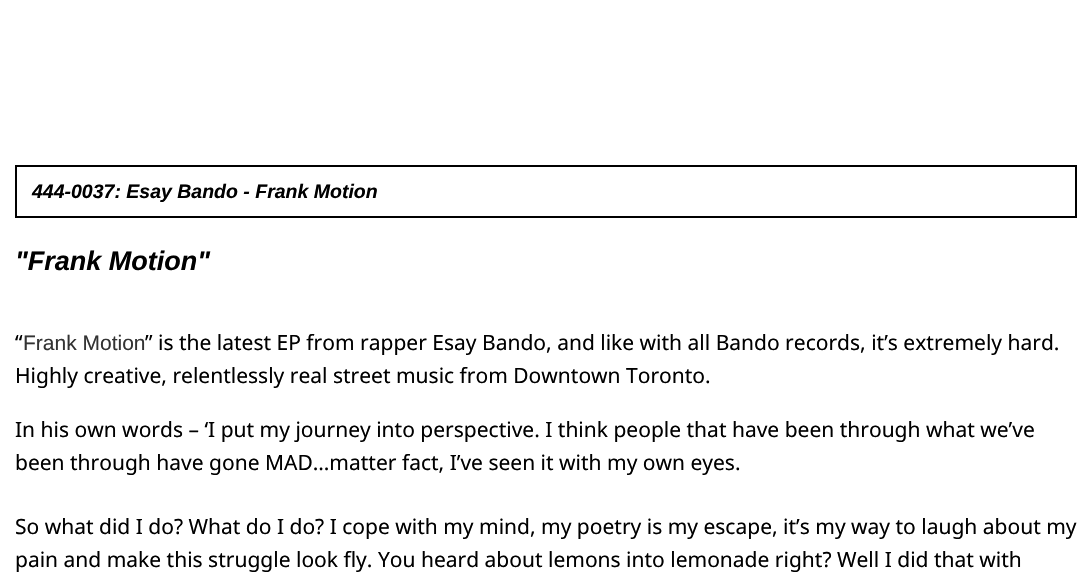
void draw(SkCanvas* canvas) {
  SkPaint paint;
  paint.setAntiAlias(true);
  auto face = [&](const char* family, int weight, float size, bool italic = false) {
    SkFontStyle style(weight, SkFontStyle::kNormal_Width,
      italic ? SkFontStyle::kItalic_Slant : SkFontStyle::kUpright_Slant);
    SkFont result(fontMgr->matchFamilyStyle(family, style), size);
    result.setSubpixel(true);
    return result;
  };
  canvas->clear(0xffffffff);
  paint.setStroke(true);
  paint.setStrokeWidth(2);
  paint.setColor(0xff000000);
  canvas->drawRect(SkRect::MakeXYWH(16, 166, 1060, 51), paint);
  auto f0 = face("Liberation Sans", 700, 19.5f, true);
  paint.setStroke(false);
  canvas->drawString("444-0037: Esay Bando - Frank Motion", 32, 198, f0, paint);
  auto f1 = face("Liberation Sans", 700, 27, true);
  canvas->drawString("\"Frank Motion\"", 15, 270, f1, paint);
  auto f2 = face("Noto Sans", 400, 21);
  canvas->drawString("“", 15, 350, f2, paint);
  auto f3 = face("Liberation Sans", 400, 21);
  paint.setColor(0xff333333);
  canvas->drawString("Frank Motion", 23, 350, f3, paint);
  paint.setColor(0xff000000);
  {
    const struct { const char* s; float x, y; } items[] = {
      {"” is the latest EP from rapper Esay Bando, and like with all Bando records, it’s extremely hard.", 145, 350},
      {"Highly creative, relentlessly real street music from Downtown Toronto.", 15, 383},
      {"In his own words – ‘I put my journey into perspective. I think people that have been through what we’ve", 15, 437},
      {"been through have gone MAD…matter fact, I’ve seen it with my own eyes.", 15, 470},
      {"So what did I do? What do I do? I cope with my mind, my poetry is my escape, it’s my way to laugh about my", 15, 534},
      {"pain and make this struggle look fly. You heard about lemons into lemonade right? Well I did that with", 15, 567},
    };
    for (auto [s, x, y] : items) {
      canvas->drawString(s, x, y, f2, paint);
    }
  }
}
